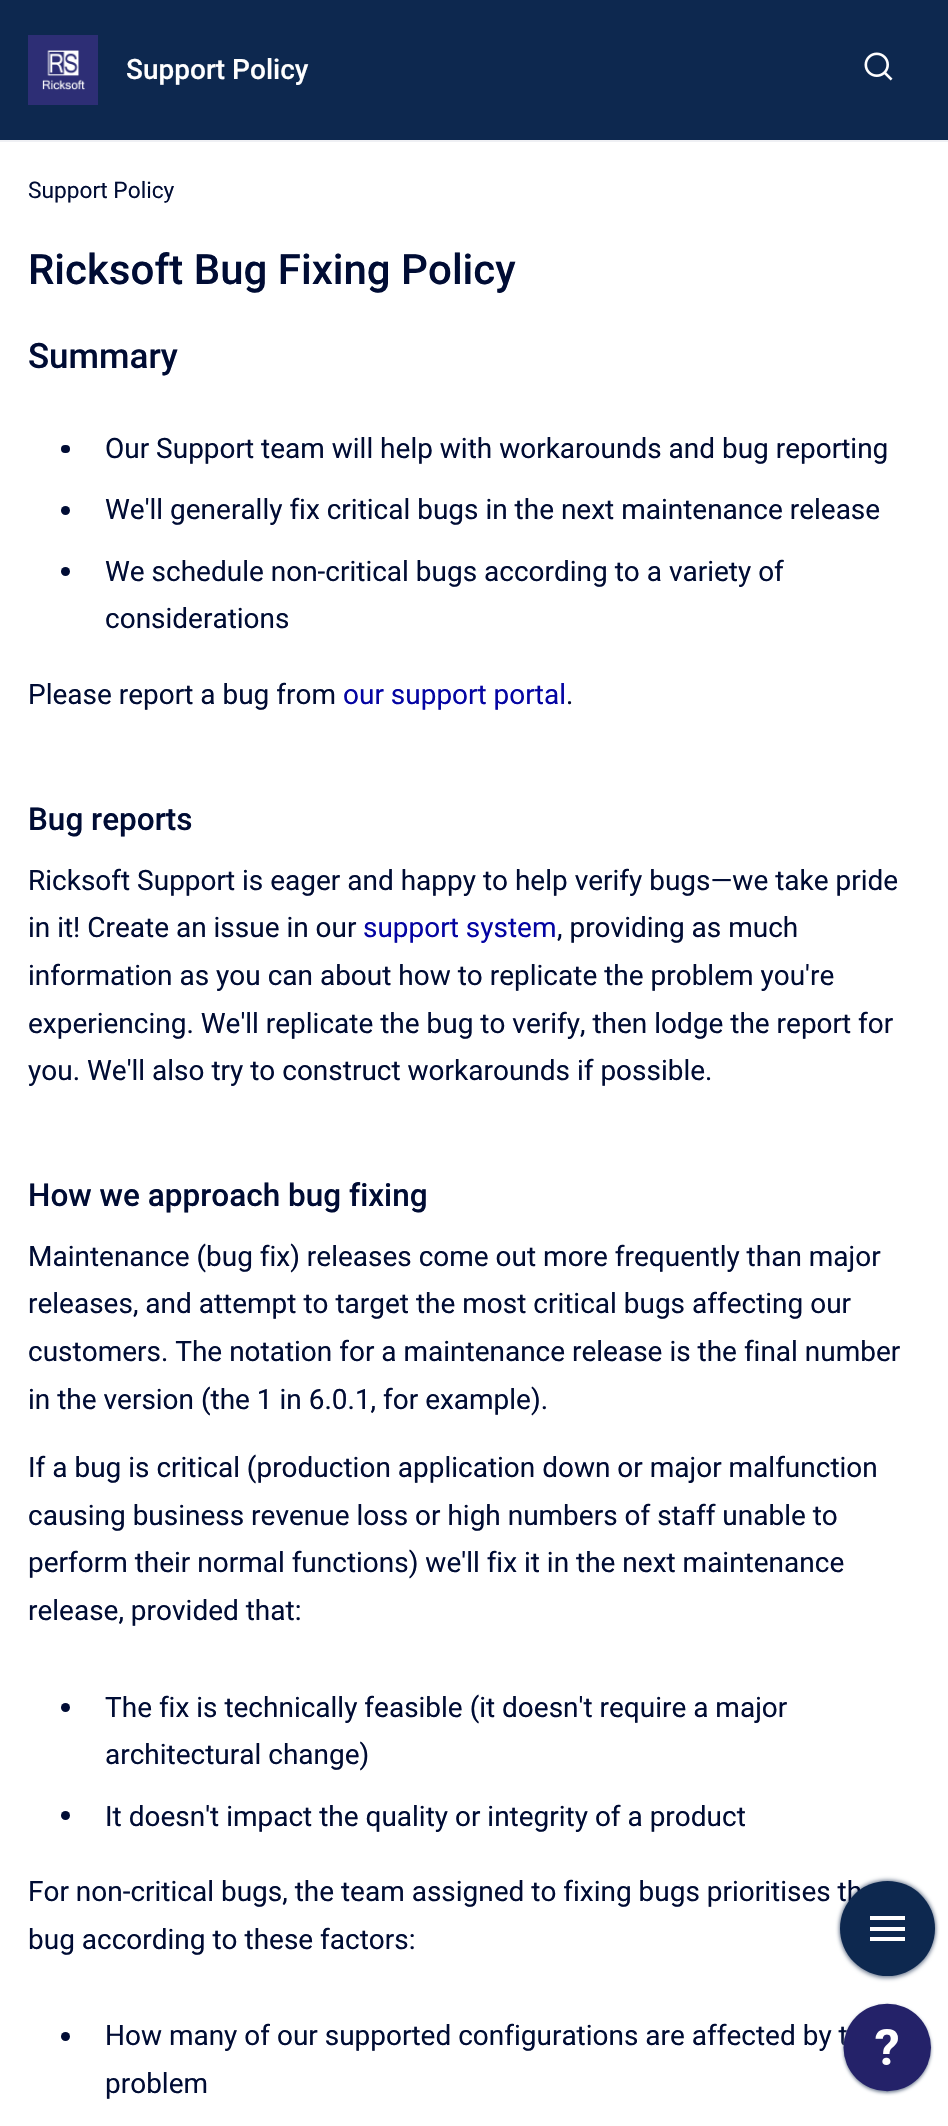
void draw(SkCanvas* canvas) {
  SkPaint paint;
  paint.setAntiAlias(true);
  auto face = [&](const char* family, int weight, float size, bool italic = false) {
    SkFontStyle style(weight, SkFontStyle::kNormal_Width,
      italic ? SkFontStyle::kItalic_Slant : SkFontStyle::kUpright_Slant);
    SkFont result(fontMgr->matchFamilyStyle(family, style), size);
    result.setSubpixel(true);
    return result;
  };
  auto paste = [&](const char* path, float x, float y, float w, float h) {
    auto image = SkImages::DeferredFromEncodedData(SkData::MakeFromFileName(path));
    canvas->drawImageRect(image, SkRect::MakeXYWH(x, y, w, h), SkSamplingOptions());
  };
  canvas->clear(0xffffffff);
  paint.setColor(0xff0d284f);
  canvas->drawRect(SkRect::MakeXYWH(0, 0, 948, 140), paint);
  paint.setColor(0xffeff0f4);
  canvas->drawRect(SkRect::MakeXYWH(0, 140, 948, 2), paint);
  paste("img/1.png", 28, 35, 70, 70);
  paste("img/2.png", 864, 52, 29, 29);
  paint.setColor(0xff000c34);
  canvas->drawRoundRect(SkRect::MakeXYWH(61, 445, 9, 8), 4, 4, paint);
  canvas->drawCircle(65.5f, 510.5f, 4.5f, paint);
  canvas->drawCircle(65.5f, 571.5f, 4.5f, paint);
  canvas->drawCircle(65.5f, 1707.5f, 4.5f, paint);
  canvas->drawCircle(65.5f, 1815.5f, 4.5f, paint);
  canvas->drawCircle(65.5f, 2036.5f, 4.5f, paint);
  paint.setColor(0xff7a869a);
  paint.setMaskFilter(SkMaskFilter::MakeBlur(kNormal_SkBlurStyle, 2));
  canvas->drawRoundRect(SkRect::MakeXYWH(840, 1880, 95, 94), 47, 47, paint);
  paint.setMaskFilter(nullptr);
  paint.setMaskFilter(SkMaskFilter::MakeBlur(kNormal_SkBlurStyle, 2));
  canvas->drawRoundRect(SkRect::MakeXYWH(840, 1883, 95, 95), 47.5f, 47.5f, paint);
  paint.setMaskFilter(nullptr);
  auto f0 = face("Roboto", 500, 28);
  paint.setColor(0xffffffff);
  canvas->drawString("Support Policy", 126, 79, f0, paint);
  auto f1 = face("Roboto", 400, 22.75f);
  paint.setColor(0xff000c34);
  canvas->drawString("Support Policy", 28, 198, f1, paint);
  auto f2 = face("Roboto", 500, 42);
  canvas->drawString("Ricksoft Bug Fixing Policy", 28, 284, f2, paint);
  auto f3 = face("Roboto", 500, 35);
  canvas->drawString("Summary", 28, 368, f3, paint);
  auto f4 = face("Roboto", 400, 28);
  {
    const struct { const char* s; float x, y; } items[] = {
      {"Our Support team will help with workarounds and bug reporting", 105, 458},
      {"We'll generally fix critical bugs in the next maintenance release", 105, 519},
      {"We schedule non-critical bugs according to a variety of", 105, 581},
      {"considerations", 105, 628},
      {"Please report a bug from", 28, 704},
    };
    for (auto [s, x, y] : items) {
      canvas->drawString(s, x, y, f4, paint);
    }
  }
  paint.setColor(0xff0404a3);
  canvas->drawString("our support portal", 343, 704, f4, paint);
  paint.setColor(0xff000c34);
  canvas->drawString(".", 566, 704, f4, paint);
  auto f5 = face("Roboto", 500, 31.5f);
  canvas->drawString("Bug reports", 28, 830, f5, paint);
  canvas->drawString("Ricksoft Support is eager and happy to help verify bugs—we take pride", 28, 890, f4, paint);
  canvas->drawString("in it! Create an issue in our", 28, 937, f4, paint);
  paint.setColor(0xff0404a3);
  canvas->drawString("support system", 363, 937, f4, paint);
  paint.setColor(0xff000c34);
  {
    const struct { const char* s; float x, y; } items[] = {
      {", providing as much", 557, 937},
      {"information as you can about how to replicate the problem you're", 28, 985},
      {"experiencing. We'll replicate the bug to verify, then lodge the report for", 28, 1033},
      {"you. We'll also try to construct workarounds if possible.", 28, 1080},
    };
    for (auto [s, x, y] : items) {
      canvas->drawString(s, x, y, f4, paint);
    }
  }
  canvas->drawString("How we approach bug fixing", 28, 1206, f5, paint);
  {
    const struct { const char* s; float x, y; } items[] = {
      {"Maintenance (bug fix) releases come out more frequently than major", 28, 1266},
      {"releases, and attempt to target the most critical bugs affecting our", 28, 1313},
      {"customers. The notation for a maintenance release is the final number", 28, 1361},
      {"in the version (the 1 in 6.0.1, for example).", 28, 1409},
      {"If a bug is critical (production application down or major malfunction", 28, 1477},
      {"causing business revenue loss or high numbers of staff unable to", 28, 1525},
      {"perform their normal functions) we'll fix it in the next maintenance", 28, 1572},
      {"release, provided that:", 28, 1620},
      {"The fix is technically feasible (it doesn't require a major", 105, 1717},
      {"architectural change)", 105, 1764},
      {"It doesn't impact the quality or integrity of a product", 105, 1826},
      {"For non-critical bugs, the team assigned to fixing bugs prioritises th", 28, 1901},
      {"bug according to these factors:", 28, 1949},
      {"How many of our supported configurations are affected by t", 105, 2045},
      {"problem", 105, 2093},
    };
    for (auto [s, x, y] : items) {
      canvas->drawString(s, x, y, f4, paint);
    }
  }
  paint.setColor(0xff0d284f);
  canvas->drawCircle(887.5f, 1928.5f, 47.5f, paint);
  {
    const struct { float x, y, w, h; SkColor color; } items[] = {
      {870, 1916, 35, 4, 0xffffffff},
      {870, 1927, 35, 4, 0xffffffff},
      {870, 1937, 35, 4, 0xffffffff},
    };
    for (auto [x, y, w, h, color] : items) {
      paint.setColor(color);
      canvas->drawRect(SkRect::MakeXYWH(x, y, w, h), paint);
    }
  }
  paste("img/3.png", 840, 2002, 94, 94);
}
